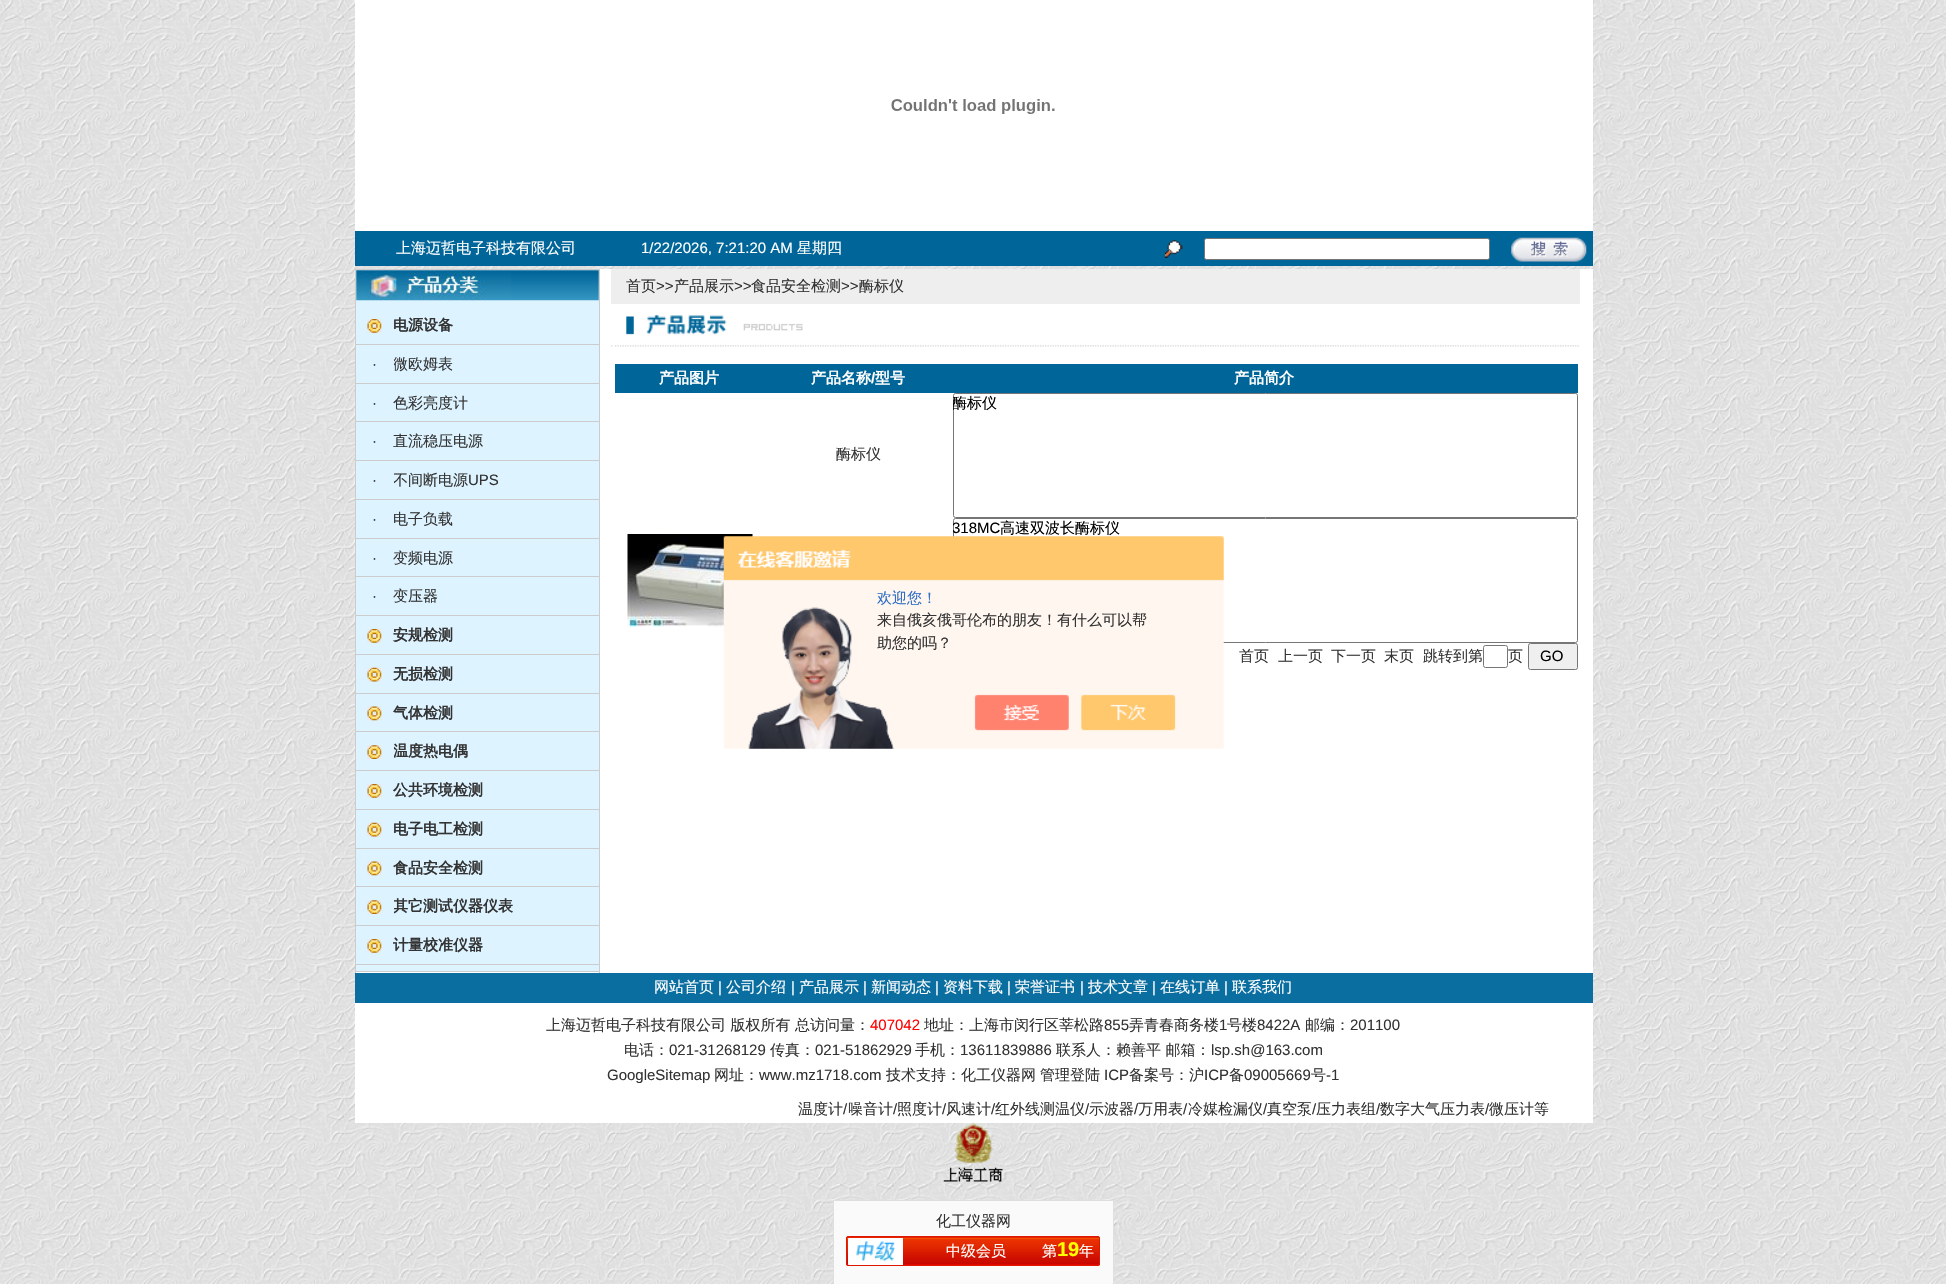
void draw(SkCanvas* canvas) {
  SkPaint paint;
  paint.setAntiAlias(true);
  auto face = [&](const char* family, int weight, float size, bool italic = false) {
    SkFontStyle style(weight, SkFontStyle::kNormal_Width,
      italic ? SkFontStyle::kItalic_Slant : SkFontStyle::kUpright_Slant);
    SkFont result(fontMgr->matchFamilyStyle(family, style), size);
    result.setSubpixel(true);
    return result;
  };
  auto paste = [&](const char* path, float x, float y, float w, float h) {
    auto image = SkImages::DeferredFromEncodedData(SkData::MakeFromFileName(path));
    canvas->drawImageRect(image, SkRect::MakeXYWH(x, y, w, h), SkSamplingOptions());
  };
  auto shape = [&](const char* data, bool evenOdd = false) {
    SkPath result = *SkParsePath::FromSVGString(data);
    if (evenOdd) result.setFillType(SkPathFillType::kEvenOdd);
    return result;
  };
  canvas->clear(0xffffffff);
  paste("img/1.png", 0, 0, 1946, 1284);
  paint.setColor(0xffffffff);
  canvas->drawRect(SkRect::MakeXYWH(355, 0, 1238, 231), paint);
  paste("img/2.png", 891, 99, 164, 15);
  paint.setColor(0xff006699);
  canvas->drawRect(SkRect::MakeXYWH(355, 231, 1238, 35), paint);
  paste("img/3.png", 1165, 240, 18, 18);
  paint.setColor(0xffffffff);
  canvas->drawRoundRect(SkRect::MakeXYWH(1204.5f, 238.5f, 285, 21), 2, 2, paint);
  paint.setStroke(true);
  paint.setStrokeWidth(1);
  paint.setColor(0xff767676);
  canvas->drawRoundRect(SkRect::MakeXYWH(1204.5f, 238.5f, 285, 21), 2, 2, paint);
  paste("img/4.png", 1511, 237, 76, 25);
  paint.setStroke(false);
  {
    const struct { float x, y, w, h; SkColor color; } items[] = {
      {356, 269, 1237, 704, 0xffffffff},
      {355, 269, 245, 1, 0xffcccccc},
      {599, 269, 1, 704, 0xffcccccc},
      {355, 971, 245, 1, 0xffcccccc},
      {355, 269, 1, 704, 0xffcccccc},
      {356, 300, 243, 671, 0xffddf3ff},
    };
    for (auto [x, y, w, h, color] : items) {
      paint.setColor(color);
      canvas->drawRect(SkRect::MakeXYWH(x, y, w, h), paint);
    }
  }
  paste("img/5.png", 356, 270, 243, 31);
  paint.setColor(0xffcccccc);
  canvas->drawRect(SkRect::MakeXYWH(356, 344, 243, 1), paint);
  paste("img/6.png", 367, 319, 15, 14);
  {
    const struct { float x, y, w, h; SkColor color; } items[] = {
      {356, 383, 243, 1, 0xffcccccc},
      {356, 421, 243, 1, 0xffcccccc},
      {356, 460, 243, 1, 0xffcccccc},
      {356, 499, 243, 1, 0xffcccccc},
      {356, 538, 243, 1, 0xffcccccc},
      {356, 576, 243, 1, 0xffcccccc},
      {356, 615, 243, 1, 0xffcccccc},
      {356, 654, 243, 1, 0xffcccccc},
    };
    for (auto [x, y, w, h, color] : items) {
      paint.setColor(color);
      canvas->drawRect(SkRect::MakeXYWH(x, y, w, h), paint);
    }
  }
  paste("img/6.png", 367, 629, 15, 14);
  canvas->drawRect(SkRect::MakeXYWH(356, 693, 243, 1), paint);
  paste("img/7.png", 367, 667, 15, 15);
  canvas->drawRect(SkRect::MakeXYWH(356, 731, 243, 1), paint);
  paste("img/8.png", 367, 706, 15, 15);
  canvas->drawRect(SkRect::MakeXYWH(356, 770, 243, 1), paint);
  paste("img/9.png", 367, 745, 15, 14);
  canvas->drawRect(SkRect::MakeXYWH(356, 809, 243, 1), paint);
  paste("img/6.png", 367, 784, 15, 14);
  canvas->drawRect(SkRect::MakeXYWH(356, 848, 243, 1), paint);
  paste("img/7.png", 367, 822, 15, 15);
  canvas->drawRect(SkRect::MakeXYWH(356, 886, 243, 1), paint);
  paste("img/8.png", 367, 861, 15, 15);
  canvas->drawRect(SkRect::MakeXYWH(356, 925, 243, 1), paint);
  paste("img/9.png", 367, 900, 15, 14);
  canvas->drawRect(SkRect::MakeXYWH(356, 964, 243, 1), paint);
  paste("img/6.png", 367, 939, 15, 14);
  paint.setColor(0xffeeeeee);
  canvas->drawRect(SkRect::MakeXYWH(611, 269, 969, 35), paint);
  paste("img/10.png", 611, 315, 968, 32);
  paint.setColor(0xff006699);
  canvas->drawRect(SkRect::MakeXYWH(615, 364, 963, 29), paint);
  paint.setStroke(true);
  paint.setColor(0xff767676);
  canvas->drawRoundRect(SkRect::MakeXYWH(953.5f, 393.5f, 624, 124), 2, 2, paint);
  canvas->drawRoundRect(SkRect::MakeXYWH(953.5f, 518.5f, 624, 124), 2, 2, paint);
  paste("img/11.png", 627, 534, 126, 93);
  canvas->drawRoundRect(SkRect::MakeXYWH(1483.5f, 645.5f, 24, 22), 2, 2, paint);
  paint.setStroke(false);
  paint.setColor(0xffefefef);
  canvas->drawRoundRect(SkRect::MakeXYWH(1528.5f, 643.5f, 49, 26), 2, 2, paint);
  paint.setStroke(true);
  paint.setColor(0xff767676);
  canvas->drawRoundRect(SkRect::MakeXYWH(1528.5f, 643.5f, 49, 26), 2, 2, paint);
  paste("img/12.png", 723, 536, 501, 213);
  paint.setStroke(false);
  paint.setColor(0xffffffff);
  canvas->drawRect(SkRect::MakeXYWH(355, 1003, 1238, 120), paint);
  paint.setColor(0xff0a6ea0);
  canvas->drawRect(SkRect::MakeXYWH(355, 973, 1238, 30), paint);
  paste("img/13.png", 943, 1122, 60, 60);
  paint.setColor(0xfffafafa);
  canvas->drawRect(SkRect::MakeXYWH(833.5f, 1200.5f, 280, 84), paint);
  paint.setStroke(true);
  paint.setColor(0xffdfdfdf);
  canvas->drawRect(SkRect::MakeXYWH(833.5f, 1200.5f, 280, 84), paint);
  paint.setStroke(false);
  paint.setColor(0xffdf1700);
  canvas->drawRoundRect(SkRect::MakeXYWH(846, 1236, 254, 30), 2.5f, 2.5f, paint);
  paste("img/14.png", 846, 1237, 254, 29);
  paint.setStroke(true);
  canvas->drawRoundRect(SkRect::MakeXYWH(846.5f, 1236.5f, 253, 29), 2, 2, paint);
  paint.setStroke(false);
  paint.setColor(0xffffffff);
  canvas->drawPath(shape("M849 1238H903V1265H849C848.5 1265 848 1264.5 848 1264V1239C848 1238.5 848.5 1238 849 1238Z"), paint);
  paste("img/15.png", 856, 1241, 39, 21);
  auto f0 = face("WenQuanYi Zen Hei", 500, 15);
  canvas->drawString("上海迈哲电子科技有限公司", 396, 253, f0, paint);
  auto f1 = face("Liberation Sans", 400, 15);
  canvas->drawString("1/22/2026, 7:21:20 AM", 641, 253, f1, paint);
  canvas->drawString("星期四", 797, 253, f0, paint);
  auto f2 = face("WenQuanYi Zen Hei", 700, 15);
  paint.setColor(0xff333333);
  canvas->drawString("电源设备", 393, 330, f2, paint);
  canvas->drawString("·", 372, 369, f1, paint);
  canvas->save();
  canvas->clipRect(SkRect::MakeXYWH(394, 345, 194, 38));
  canvas->drawString("微欧姆表", 393, 369, f0, paint);
  canvas->restore();
  canvas->drawString("·", 372, 408, f1, paint);
  canvas->drawString("色彩亮度计", 393, 408, f0, paint);
  canvas->drawString("·", 372, 446, f1, paint);
  canvas->drawString("直流稳压电源", 393, 446, f0, paint);
  canvas->drawString("·", 372, 485, f1, paint);
  canvas->save();
  canvas->clipRect(SkRect::MakeXYWH(394, 461, 194, 38));
  canvas->drawString("不间断电源", 393, 485, f0, paint);
  canvas->restore();
  canvas->drawString("UPS", 468, 485, f1, paint);
  canvas->drawString("·", 372, 524, f1, paint);
  canvas->drawString("电子负载", 393, 524, f0, paint);
  canvas->drawString("·", 372, 563, f1, paint);
  canvas->drawString("变频电源", 393, 563, f0, paint);
  canvas->drawString("·", 372, 601, f1, paint);
  canvas->drawString("变压器", 393, 601, f0, paint);
  {
    const struct { const char* s; float x, y; } items[] = {
      {"安规检测", 393, 640},
      {"无损检测", 393, 679},
      {"气体检测", 393, 718},
    };
    for (auto [s, x, y] : items) {
      canvas->drawString(s, x, y, f2, paint);
    }
  }
  canvas->save();
  canvas->clipRect(SkRect::MakeXYWH(394, 733, 194, 37));
  canvas->drawString("温度热电偶", 393, 756, f2, paint);
  canvas->restore();
  {
    const struct { const char* s; float x, y; } items[] = {
      {"公共环境检测", 393, 795},
      {"电子电工检测", 393, 834},
      {"食品安全检测", 393, 873},
    };
    for (auto [s, x, y] : items) {
      canvas->drawString(s, x, y, f2, paint);
    }
  }
  canvas->save();
  canvas->clipRect(SkRect::MakeXYWH(394, 888, 194, 37));
  canvas->drawString("其它测试仪器仪表", 393, 911, f2, paint);
  canvas->restore();
  canvas->drawString("计量校准仪器", 393, 950, f2, paint);
  canvas->drawString("首页", 626, 291, f0, paint);
  canvas->drawString(">>", 656, 291, f1, paint);
  canvas->drawString("产品展示", 674, 291, f0, paint);
  canvas->drawString(">>", 734, 291, f1, paint);
  canvas->drawString("食品安全检测", 751, 291, f0, paint);
  canvas->drawString(">>", 841, 291, f1, paint);
  canvas->drawString("酶标仪", 859, 291, f0, paint);
  paint.setColor(0xffffffff);
  canvas->drawString("产品图片", 659, 383, f2, paint);
  canvas->drawString("产品名称", 811, 383, f2, paint);
  auto f3 = face("Liberation Sans", 700, 15);
  canvas->drawString("/", 871, 383, f3, paint);
  canvas->drawString("型号", 875, 383, f2, paint);
  canvas->drawString("产品简介", 1234, 383, f2, paint);
  canvas->save();
  canvas->clipRect(SkRect::MakeXYWH(953, 393, 625, 125));
  paint.setColor(0xff000000);
  canvas->drawString("酶标仪", 952, 408, f0, paint);
  canvas->restore();
  paint.setColor(0xff333333);
  canvas->drawString("酶标仪", 836, 459, f0, paint);
  canvas->save();
  canvas->clipRect(SkRect::MakeXYWH(953, 518, 625, 125));
  paint.setColor(0xff000000);
  canvas->drawString("318MC", 952, 533, f1, paint);
  canvas->restore();
  canvas->drawString("高速双波长酶标仪", 1000, 533, f0, paint);
  paint.setColor(0xff333333);
  {
    const struct { const char* s; float x, y; } items[] = {
      {"首页", 1239, 661},
      {"上一页", 1278, 661},
      {"下一页", 1331, 661},
      {"末页", 1384, 661},
      {"跳转到第", 1423, 661},
      {"页", 1508, 661},
    };
    for (auto [s, x, y] : items) {
      canvas->drawString(s, x, y, f0, paint);
    }
  }
  paint.setColor(0xff000000);
  canvas->drawString("GO", 1540, 661, f1, paint);
  paint.setColor(0xff2e6ec6);
  canvas->drawString("欢迎您！", 877, 603, f0, paint);
  paint.setColor(0xff333333);
  canvas->drawString("来自俄亥俄哥伦布的朋友！有什么可以帮", 877, 625, f0, paint);
  canvas->drawString("助您的吗？", 877, 648, f0, paint);
  paint.setColor(0xffffffff);
  canvas->drawString("网站首页", 654, 992, f0, paint);
  canvas->drawString("|", 718, 992, f1, paint);
  canvas->drawString("公司介绍", 726, 992, f0, paint);
  canvas->drawString("|", 791, 992, f1, paint);
  canvas->drawString("产品展示", 799, 992, f0, paint);
  canvas->drawString("|", 863, 992, f1, paint);
  canvas->drawString("新闻动态", 871, 992, f0, paint);
  canvas->drawString("|", 935, 992, f1, paint);
  canvas->drawString("资料下载", 943, 992, f0, paint);
  canvas->drawString("|", 1007, 992, f1, paint);
  canvas->drawString("荣誉证书", 1015, 992, f0, paint);
  canvas->drawString("|", 1080, 992, f1, paint);
  canvas->drawString("技术文章", 1088, 992, f0, paint);
  canvas->drawString("|", 1152, 992, f1, paint);
  canvas->drawString("在线订单", 1160, 992, f0, paint);
  canvas->drawString("|", 1224, 992, f1, paint);
  canvas->drawString("联系我们", 1232, 992, f0, paint);
  paint.setColor(0xff333333);
  canvas->drawString("上海迈哲电子科技有限公司 版权所有", 546, 1030, f0, paint);
  canvas->drawString("总访问量：", 795, 1030, f0, paint);
  paint.setColor(0xffff0000);
  canvas->drawString("407042", 870, 1030, f1, paint);
  paint.setColor(0xff333333);
  canvas->drawString("地址：上海市闵行区莘松路", 924, 1030, f0, paint);
  canvas->drawString("855", 1104, 1030, f1, paint);
  canvas->drawString("弄青春商务楼", 1129, 1030, f0, paint);
  canvas->drawString("1", 1219, 1030, f1, paint);
  canvas->drawString("号楼", 1227, 1030, f0, paint);
  canvas->drawString("8422A", 1257, 1030, f1, paint);
  canvas->drawString("邮编：", 1305, 1030, f0, paint);
  canvas->drawString("201100", 1350, 1030, f1, paint);
  canvas->drawString("电话：", 624, 1055, f0, paint);
  canvas->drawString("021-31268129", 669, 1055, f1, paint);
  canvas->drawString("传真：", 770, 1055, f0, paint);
  canvas->drawString("021-51862929", 815, 1055, f1, paint);
  canvas->drawString("手机：", 915, 1055, f0, paint);
  canvas->drawString("13611839886", 960, 1055, f1, paint);
  canvas->drawString("联系人：赖善平 邮箱：", 1056, 1055, f0, paint);
  canvas->drawString("lsp.sh@163.com", 1211, 1055, f1, paint);
  canvas->drawString("GoogleSitemap", 607, 1080, f1, paint);
  canvas->drawString("网址：", 714, 1080, f0, paint);
  canvas->drawString("www.mz1718.com", 759, 1080, f1, paint);
  canvas->drawString("技术支持：化工仪器网", 886, 1080, f0, paint);
  canvas->drawString("管理登陆", 1040, 1080, f0, paint);
  canvas->drawString("ICP", 1104, 1080, f1, paint);
  canvas->drawString("备案号：沪", 1129, 1080, f0, paint);
  canvas->drawString("ICP", 1204, 1080, f1, paint);
  canvas->drawString("备", 1229, 1080, f0, paint);
  canvas->drawString("09005669", 1244, 1080, f1, paint);
  canvas->drawString("号", 1311, 1080, f0, paint);
  canvas->drawString("-1", 1326, 1080, f1, paint);
  canvas->drawString("温度计", 798, 1114, f0, paint);
  canvas->drawString("/", 843, 1114, f1, paint);
  canvas->drawString("噪音计", 848, 1114, f0, paint);
  canvas->drawString("/", 893, 1114, f1, paint);
  canvas->drawString("照度计", 897, 1114, f0, paint);
  canvas->drawString("/", 942, 1114, f1, paint);
  canvas->drawString("风速计", 946, 1114, f0, paint);
  canvas->drawString("/", 991, 1114, f1, paint);
  canvas->drawString("红外线测温仪", 995, 1114, f0, paint);
  canvas->drawString("/", 1085, 1114, f1, paint);
  canvas->drawString("示波器", 1089, 1114, f0, paint);
  canvas->drawString("/", 1134, 1114, f1, paint);
  canvas->drawString("万用表", 1138, 1114, f0, paint);
  canvas->drawString("/", 1183, 1114, f1, paint);
  canvas->drawString("冷媒检漏仪", 1188, 1114, f0, paint);
  canvas->drawString("/", 1263, 1114, f1, paint);
  canvas->drawString("真空泵", 1267, 1114, f0, paint);
  canvas->drawString("/", 1312, 1114, f1, paint);
  canvas->drawString("压力表组", 1316, 1114, f0, paint);
  canvas->drawString("/", 1376, 1114, f1, paint);
  canvas->drawString("数字大气压力表", 1380, 1114, f0, paint);
  canvas->drawString("/", 1485, 1114, f1, paint);
  canvas->drawString("微压计等", 1489, 1114, f0, paint);
  canvas->drawString("化工仪器网", 936, 1226, f0, paint);
  paint.setColor(0xffffffff);
  canvas->drawString("中级会员", 946, 1256, f0, paint);
  canvas->drawString("第", 1042, 1256, f0, paint);
  auto f4 = face("Liberation Sans", 700, 20);
  paint.setColor(0xfffcff00);
  canvas->drawString("19", 1057, 1256, f4, paint);
  paint.setColor(0xffffffff);
  canvas->drawString("年", 1079, 1256, f0, paint);
}
